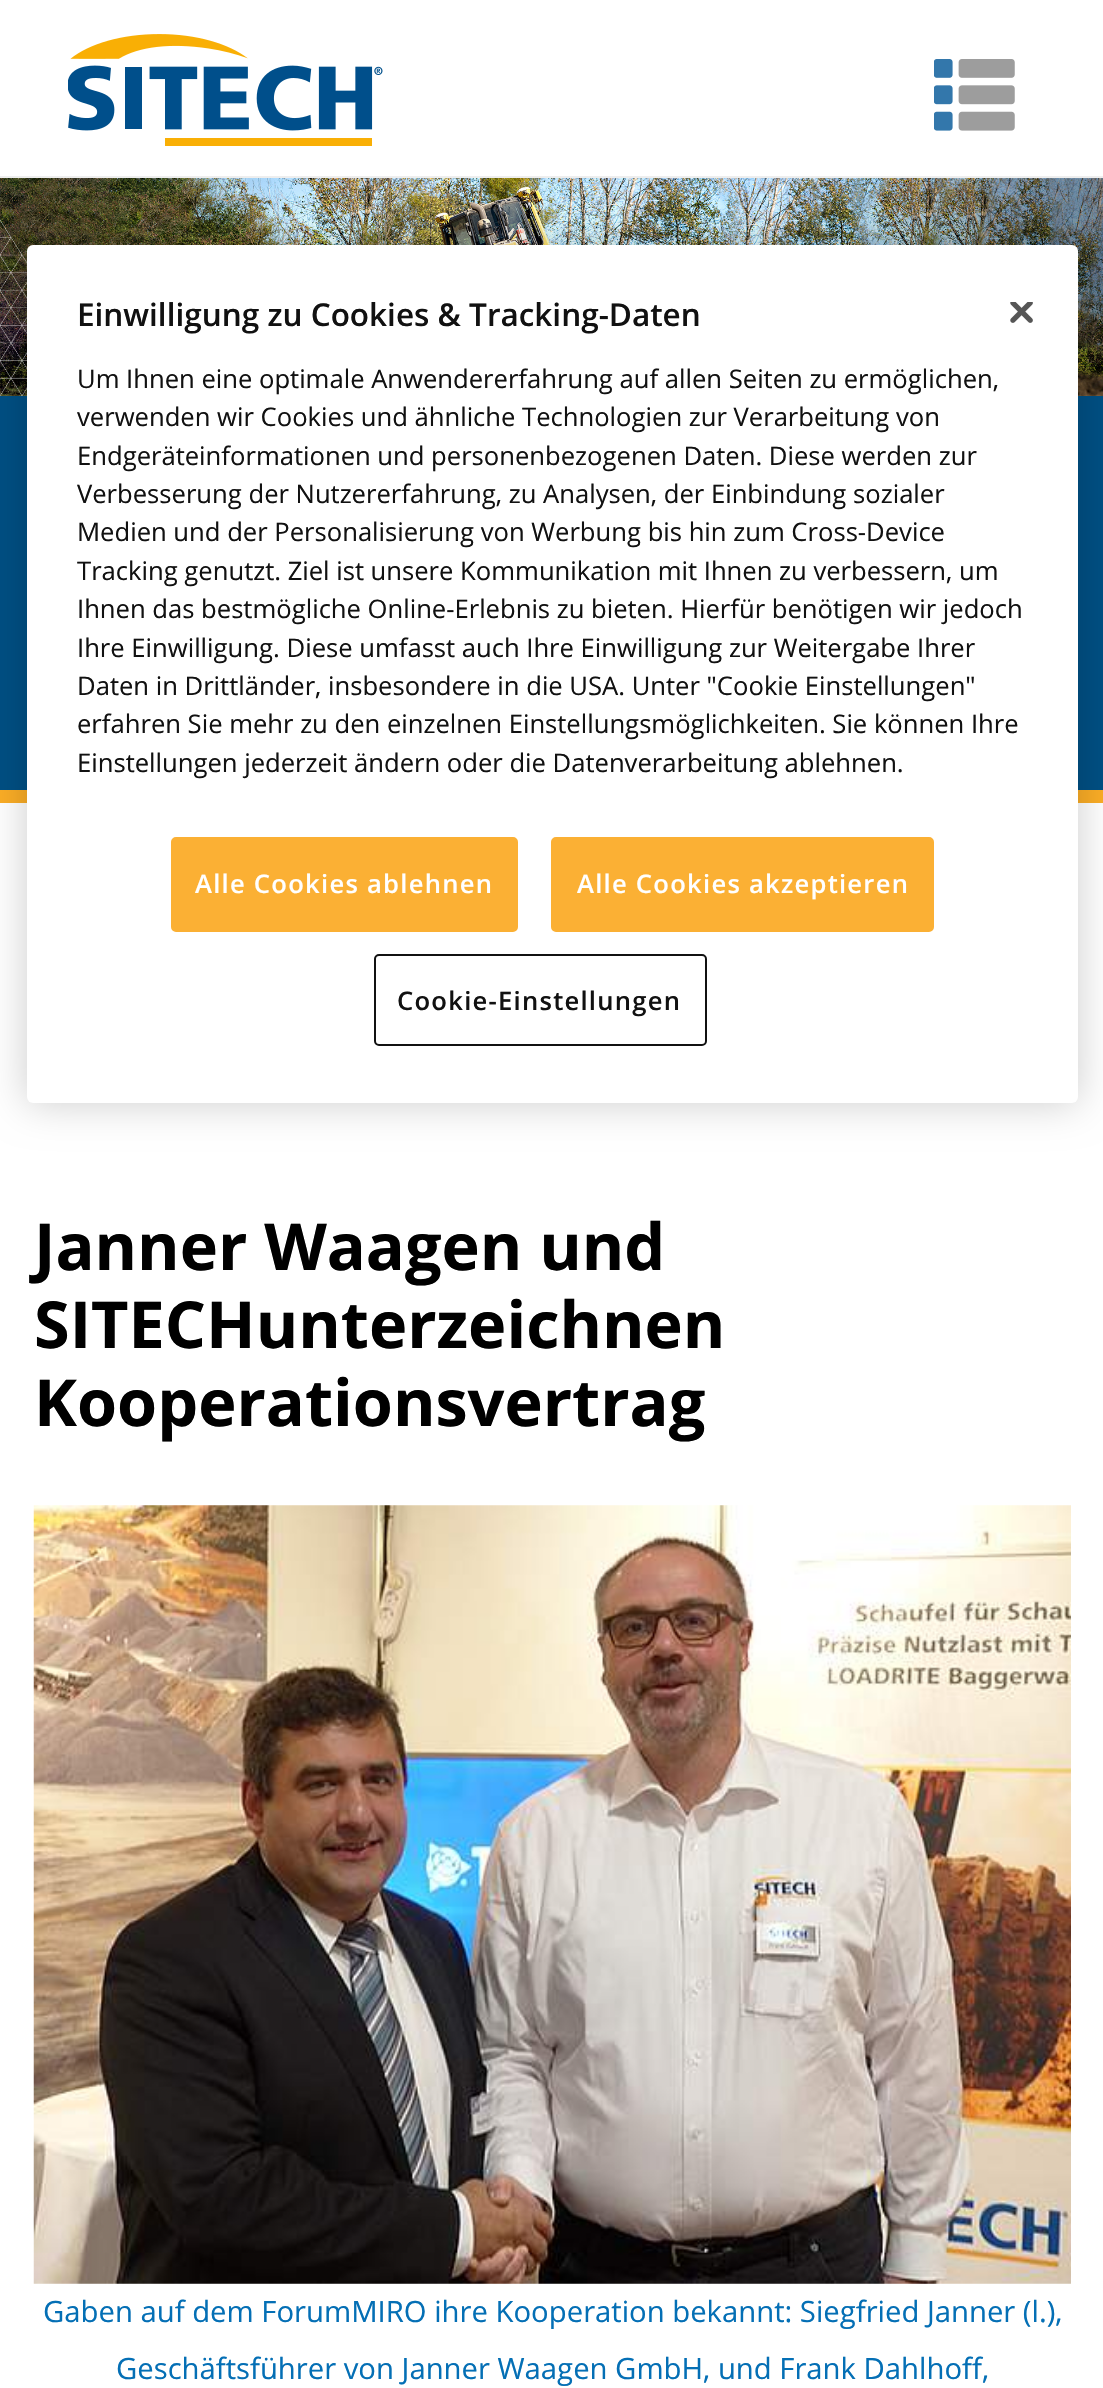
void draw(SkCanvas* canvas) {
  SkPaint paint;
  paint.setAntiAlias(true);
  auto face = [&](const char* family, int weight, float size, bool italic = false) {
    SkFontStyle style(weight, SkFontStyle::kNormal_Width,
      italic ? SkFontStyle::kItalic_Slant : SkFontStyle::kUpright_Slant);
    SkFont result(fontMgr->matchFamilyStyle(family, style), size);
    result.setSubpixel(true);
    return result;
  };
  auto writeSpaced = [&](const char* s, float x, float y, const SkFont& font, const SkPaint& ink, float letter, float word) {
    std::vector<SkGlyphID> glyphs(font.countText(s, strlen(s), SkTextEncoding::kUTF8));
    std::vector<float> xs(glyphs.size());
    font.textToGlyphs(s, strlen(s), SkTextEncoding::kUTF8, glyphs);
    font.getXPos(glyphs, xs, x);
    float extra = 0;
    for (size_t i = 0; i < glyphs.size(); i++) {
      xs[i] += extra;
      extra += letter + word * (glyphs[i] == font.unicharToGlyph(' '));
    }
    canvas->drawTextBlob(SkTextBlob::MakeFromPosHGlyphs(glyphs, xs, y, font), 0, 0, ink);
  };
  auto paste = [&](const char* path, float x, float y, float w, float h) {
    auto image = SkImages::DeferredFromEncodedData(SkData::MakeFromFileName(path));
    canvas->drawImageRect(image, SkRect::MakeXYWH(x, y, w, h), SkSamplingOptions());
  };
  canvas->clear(0xffffffff);
  paint.setColor(0xfffbad26);
  canvas->drawRect(SkRect::MakeXYWH(0, 790, 1103, 13), paint);
  paste("img/4.png", 0, 178, 1103, 218);
  paint.setColor(0xff004f83);
  canvas->drawRect(SkRect::MakeXYWH(0, 396, 1103, 394), paint);
  paint.setColor(0x33000000);
  paint.setMaskFilter(SkMaskFilter::MakeBlur(kNormal_SkBlurStyle, 20));
  canvas->drawRoundRect(SkRect::MakeXYWH(27, 245, 1051, 858), 6, 6, paint);
  paint.setMaskFilter(nullptr);
  paint.setColor(0xffffffff);
  canvas->drawRoundRect(SkRect::MakeXYWH(27, 245, 1051, 858), 6, 6, paint);
  paste("img/1.png", 1010, 302, 23, 21);
  paint.setColor(0xfffbb034);
  canvas->drawRoundRect(SkRect::MakeXYWH(172, 838, 345, 93), 4, 4, paint);
  paint.setStroke(true);
  paint.setStrokeWidth(2);
  canvas->drawRoundRect(SkRect::MakeXYWH(172, 838, 345, 93), 4, 4, paint);
  paint.setStroke(false);
  canvas->drawRoundRect(SkRect::MakeXYWH(552, 838, 381, 93), 4, 4, paint);
  paint.setStroke(true);
  canvas->drawRoundRect(SkRect::MakeXYWH(552, 838, 381, 93), 4, 4, paint);
  paint.setColor(0xff111111);
  canvas->drawRoundRect(SkRect::MakeXYWH(375, 955, 331, 90), 4, 4, paint);
  paint.setStroke(false);
  paint.setColor(0xffeeeeee);
  canvas->drawRect(SkRect::MakeXYWH(0, 176, 1103, 2), paint);
  paste("img/2.png", 68, 34, 315, 112);
  paste("img/3.png", 934, 59, 81, 72);
  paste("img/5.png", 33, 1505, 1038, 779);
  auto f0 = face("Open Sans", 600, 31.5f);
  paint.setColor(0xff111111);
  canvas->drawString("Einwilligung zu Cookies & Tracking-Daten", 77, 326, f0, paint);
  auto f1 = face("Open Sans", 400, 25.6f);
  {
    const struct { const char* s; float x, y; } items[] = {
      {"Um Ihnen eine optimale Anwendererfahrung auf allen Seiten zu ermöglichen,", 77, 388},
      {"verwenden wir Cookies und ähnliche Technologien zur Verarbeitung von", 77, 426},
      {"Endgeräteinformationen und personenbezogenen Daten. Diese werden zur", 77, 465},
      {"Verbesserung der Nutzererfahrung, zu Analysen, der Einbindung sozialer", 77, 503},
      {"Medien und der Personalisierung von Werbung bis hin zum Cross-Device", 77, 541},
      {"Tracking genutzt. Ziel ist unsere Kommunikation mit Ihnen zu verbessern, um", 77, 580},
      {"Ihnen das bestmögliche Online-Erlebnis zu bieten. Hierfür benötigen wir jedoch", 77, 618},
      {"Ihre Einwilligung. Diese umfasst auch Ihre Einwilligung zur Weitergabe Ihrer", 77, 657},
      {"Daten in Drittländer, insbesondere in die USA. Unter \"Cookie Einstellungen\"", 77, 695},
      {"erfahren Sie mehr zu den einzelnen Einstellungsmöglichkeiten. Sie können Ihre", 77, 733},
      {"Einstellungen jederzeit ändern oder die Datenverarbeitung ablehnen.", 77, 772},
    };
    for (auto [s, x, y] : items) {
      canvas->drawString(s, x, y, f1, paint);
    }
  }
  auto f2 = face("Open Sans", 600, 25.6f);
  paint.setColor(0xffffffff);
  writeSpaced("Alle Cookies ablehnen", 195, 893, f2, paint, 1.25f, 0);
  writeSpaced("Alle Cookies akzeptieren", 577, 893, f2, paint, 1.25f, 0);
  paint.setColor(0xff111111);
  writeSpaced("Cookie-Einstellungen", 397, 1010, f2, paint, 1.25f, 0);
  auto f3 = face("Open Sans", 700, 64.75f);
  paint.setColor(0xff000000);
  {
    const struct { const char* s; float x, y; } items[] = {
      {"Janner Waagen und", 34, 1270},
      {"SITECHunterzeichnen", 34, 1348},
      {"Kooperationsvertrag", 34, 1426},
    };
    for (auto [s, x, y] : items) {
      canvas->drawString(s, x, y, f3, paint);
    }
  }
  auto f4 = face("Open Sans", 400, 29.25f);
  paint.setColor(0xff046fb5);
  canvas->drawString("Gaben auf dem ForumMIRO ihre Kooperation bekannt: Siegfried Janner (l.),", 43, 2322, f4, paint);
  canvas->drawString("Geschäftsführer von Janner Waagen GmbH, und Frank Dahlhoff,", 116, 2379, f4, paint);
}
